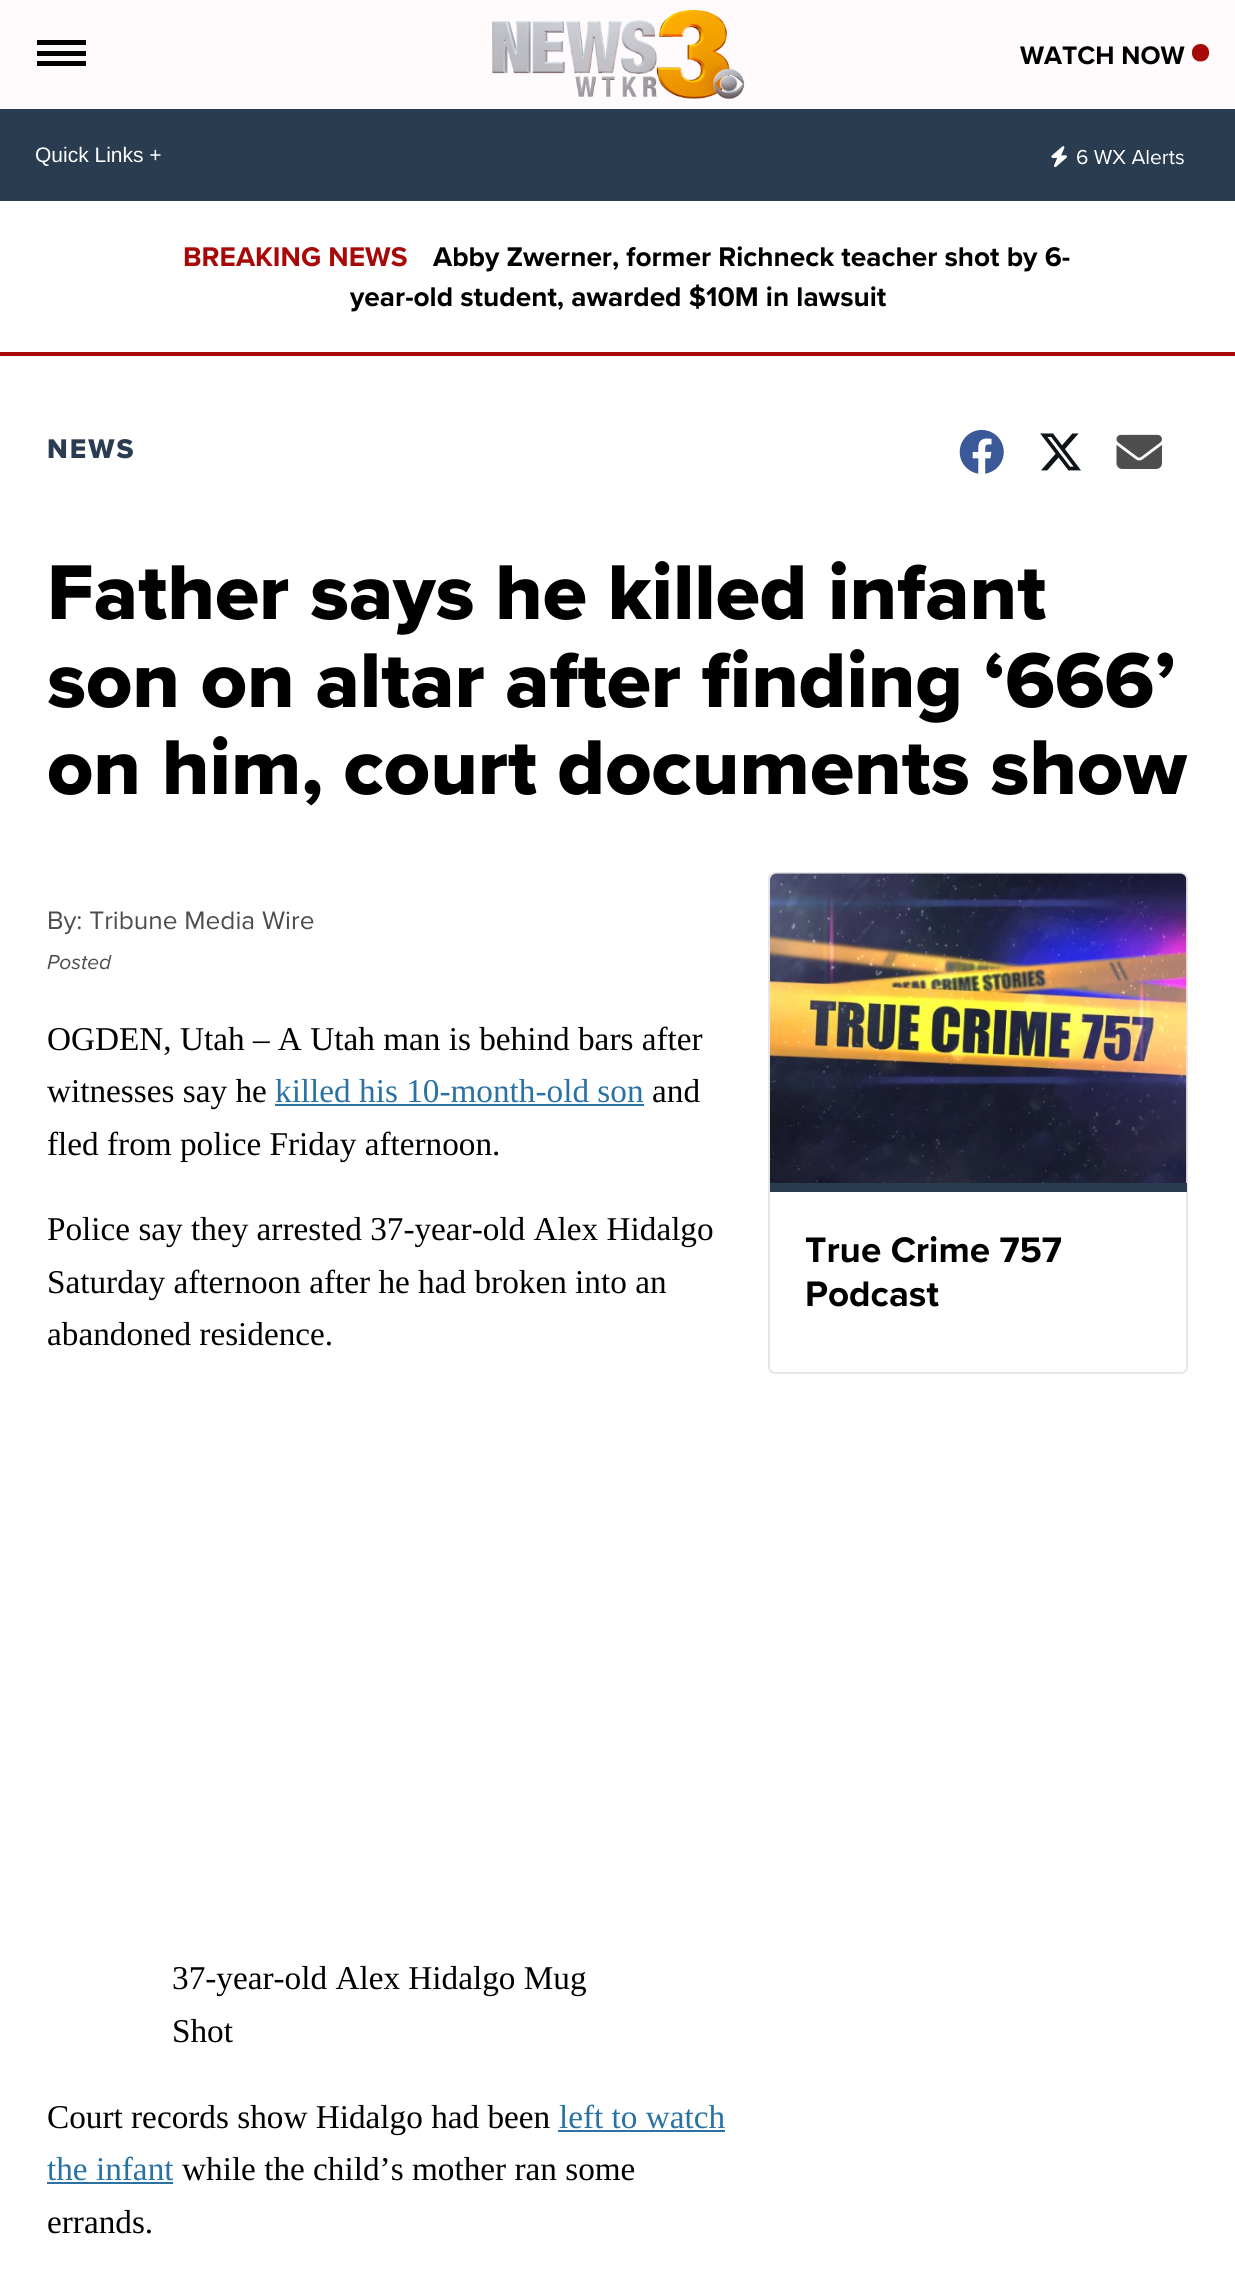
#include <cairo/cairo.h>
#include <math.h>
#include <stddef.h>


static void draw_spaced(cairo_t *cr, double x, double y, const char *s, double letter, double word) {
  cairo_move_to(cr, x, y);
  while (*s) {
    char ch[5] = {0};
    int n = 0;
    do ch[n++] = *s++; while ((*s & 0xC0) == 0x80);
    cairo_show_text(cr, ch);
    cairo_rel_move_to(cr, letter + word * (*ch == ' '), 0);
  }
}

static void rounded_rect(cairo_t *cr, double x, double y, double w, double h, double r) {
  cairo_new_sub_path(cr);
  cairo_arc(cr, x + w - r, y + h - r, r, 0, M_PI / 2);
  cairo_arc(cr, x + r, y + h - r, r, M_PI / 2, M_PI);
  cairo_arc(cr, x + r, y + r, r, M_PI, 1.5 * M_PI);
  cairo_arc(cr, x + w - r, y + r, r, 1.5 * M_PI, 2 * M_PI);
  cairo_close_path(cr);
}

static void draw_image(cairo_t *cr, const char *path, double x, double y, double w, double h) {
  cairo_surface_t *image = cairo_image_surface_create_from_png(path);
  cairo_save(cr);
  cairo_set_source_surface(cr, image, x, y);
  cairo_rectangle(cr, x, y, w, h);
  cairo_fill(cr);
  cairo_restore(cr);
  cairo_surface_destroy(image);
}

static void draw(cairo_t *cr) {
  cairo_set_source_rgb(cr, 1, 1, 1);
  cairo_paint(cr);
  cairo_set_source_rgb(cr, 1, 251 / 255.0, 253 / 255.0);
  cairo_rectangle(cr, 0, 0, 1235, 109);
  cairo_fill(cr);
  cairo_set_source_rgb(cr, 0, 0, 0);
  cairo_rectangle(cr, 37, 40, 49, 5);
  cairo_fill(cr);
  cairo_rectangle(cr, 37, 51, 49, 5);
  cairo_fill(cr);
  cairo_rectangle(cr, 37, 61, 49, 5);
  cairo_fill(cr);
  draw_image(cr, "images/1.png", 492, 9, 253, 90);
  cairo_set_source_rgb(cr, 167 / 255.0, 8 / 255.0, 8 / 255.0);
  cairo_new_path(cr);
  cairo_move_to(cr, 1200.5, 61.5);
  cairo_curve_to(cr, 1212, 61.5, 1212, 44, 1200.5, 44);
  cairo_curve_to(cr, 1189, 44, 1189, 61.5, 1200.5, 61.5);
  cairo_close_path(cr);
  cairo_fill(cr);
  cairo_set_source_rgb(cr, 42 / 255.0, 60 / 255.0, 79 / 255.0);
  cairo_rectangle(cr, 0, 109, 1235, 92);
  cairo_fill(cr);
  draw_image(cr, "images/2.png", 1051, 146, 16, 22);
  cairo_set_source_rgb(cr, 167 / 255.0, 8 / 255.0, 8 / 255.0);
  cairo_rectangle(cr, 0, 352, 1235, 4);
  cairo_fill(cr);
  draw_image(cr, "images/3.png", 959, 429, 45, 45);
  draw_image(cr, "images/4.png", 1040, 433, 41, 38);
  draw_image(cr, "images/5.png", 1116, 434, 46, 35);
  cairo_set_source_rgb(cr, 41 / 255.0, 114 / 255.0, 163 / 255.0);
  cairo_rectangle(cr, 275, 1104, 369, 2);
  cairo_fill(cr);
  cairo_rectangle(cr, 558, 2130, 167, 2);
  cairo_fill(cr);
  cairo_rectangle(cr, 47, 2182, 126, 2);
  cairo_fill(cr);
  rounded_rect(cr, 769, 873, 418, 500, 6);
  cairo_set_source_rgb(cr, 231 / 255.0, 231 / 255.0, 231 / 255.0);
  cairo_stroke(cr);
  draw_image(cr, "images/6.png", 770, 873, 417, 310);
  cairo_set_source_rgb(cr, 42 / 255.0, 60 / 255.0, 79 / 255.0);
  cairo_rectangle(cr, 770, 1183, 417, 9);
  cairo_fill(cr);
  cairo_select_font_face(cr, "Proxima Nova", CAIRO_FONT_SLANT_NORMAL, CAIRO_FONT_WEIGHT_BOLD);
  cairo_set_font_size(cr, 26.25);
  cairo_set_source_rgb(cr, 0, 0, 0);
  cairo_move_to(cr, 1020, 64);
  cairo_show_text(cr, "WATCH NOW");
  cairo_select_font_face(cr, "Liberation Sans", CAIRO_FONT_SLANT_NORMAL, CAIRO_FONT_WEIGHT_NORMAL);
  cairo_set_font_size(cr, 21);
  cairo_set_source_rgb(cr, 1, 1, 1);
  cairo_move_to(cr, 35, 162);
  cairo_show_text(cr, "Quick Links +");
  cairo_select_font_face(cr, "Proxima Nova", CAIRO_FONT_SLANT_NORMAL, CAIRO_FONT_WEIGHT_NORMAL);
  cairo_move_to(cr, 1076, 164);
  cairo_show_text(cr, "6 WX Alerts");
  cairo_select_font_face(cr, "Proxima Nova", CAIRO_FONT_SLANT_NORMAL, CAIRO_FONT_WEIGHT_BOLD);
  cairo_set_font_size(cr, 28);
  cairo_set_source_rgb(cr, 167 / 255.0, 8 / 255.0, 8 / 255.0);
  cairo_move_to(cr, 183, 266);
  cairo_show_text(cr, "BREAKING NEWS");
  cairo_set_source_rgb(cr, 0, 0, 0);
  cairo_move_to(cr, 433, 266);
  cairo_show_text(cr, "Abby Zwerner, former Richneck teacher shot by 6-");
  cairo_move_to(cr, 350, 306);
  cairo_show_text(cr, "year-old student, awarded $10M in lawsuit");
  cairo_select_font_face(cr, "Proxima Nova ExtraBold", CAIRO_FONT_SLANT_NORMAL, CAIRO_FONT_WEIGHT_NORMAL);
  cairo_set_source_rgb(cr, 42 / 255.0, 60 / 255.0, 79 / 255.0);
  draw_spaced(cr, 47, 458, "NEWS", 2, 0);
  cairo_set_font_size(cr, 80.5);
  cairo_set_source_rgb(cr, 0, 0, 0);
  cairo_move_to(cr, 47, 619);
  cairo_show_text(cr, "Father says he killed infant");
  cairo_move_to(cr, 47, 707);
  cairo_show_text(cr, "son on altar after finding ‘666’");
  cairo_move_to(cr, 47, 794);
  cairo_show_text(cr, "on him, court documents show");
  cairo_select_font_face(cr, "Proxima Nova", CAIRO_FONT_SLANT_NORMAL, CAIRO_FONT_WEIGHT_NORMAL);
  cairo_set_font_size(cr, 26.25);
  cairo_set_source_rgb(cr, 77 / 255.0, 77 / 255.0, 77 / 255.0);
  cairo_move_to(cr, 47, 929);
  cairo_show_text(cr, "By: Tribune Media Wire");
  cairo_select_font_face(cr, "Proxima Nova", CAIRO_FONT_SLANT_ITALIC, CAIRO_FONT_WEIGHT_NORMAL);
  cairo_set_font_size(cr, 21);
  cairo_move_to(cr, 47, 969);
  cairo_show_text(cr, "Posted");
  cairo_select_font_face(cr, "Liberation Serif", CAIRO_FONT_SLANT_NORMAL, CAIRO_FONT_WEIGHT_NORMAL);
  cairo_set_font_size(cr, 33.25);
  cairo_set_source_rgb(cr, 0, 0, 0);
  cairo_move_to(cr, 47, 1050);
  cairo_show_text(cr, "OGDEN, Utah – A Utah man is behind bars after");
  cairo_move_to(cr, 47, 1102);
  cairo_show_text(cr, "witnesses say he");
  cairo_set_source_rgb(cr, 41 / 255.0, 114 / 255.0, 163 / 255.0);
  cairo_move_to(cr, 275, 1102);
  cairo_show_text(cr, "killed his 10-month-old son");
  cairo_set_source_rgb(cr, 0, 0, 0);
  cairo_move_to(cr, 652, 1102);
  cairo_show_text(cr, "and");
  cairo_move_to(cr, 47, 1155);
  cairo_show_text(cr, "fled from police Friday afternoon.");
  cairo_move_to(cr, 47, 1240);
  cairo_show_text(cr, "Police say they arrested 37-year-old Alex Hidalgo");
  cairo_move_to(cr, 47, 1293);
  cairo_show_text(cr, "Saturday afternoon after he had broken into an");
  cairo_move_to(cr, 47, 1345);
  cairo_show_text(cr, "abandoned residence.");
  cairo_move_to(cr, 172, 1989);
  cairo_show_text(cr, "37-year-old Alex Hidalgo Mug");
  cairo_move_to(cr, 172, 2042);
  cairo_show_text(cr, "Shot");
  cairo_move_to(cr, 47, 2128);
  cairo_show_text(cr, "Court records show Hidalgo had been");
  cairo_set_source_rgb(cr, 41 / 255.0, 114 / 255.0, 163 / 255.0);
  cairo_move_to(cr, 559, 2128);
  cairo_show_text(cr, "left to watch");
  cairo_move_to(cr, 47, 2180);
  cairo_show_text(cr, "the infant");
  cairo_set_source_rgb(cr, 0, 0, 0);
  cairo_move_to(cr, 182, 2180);
  cairo_show_text(cr, "while the child’s mother ran some");
  cairo_move_to(cr, 47, 2233);
  cairo_show_text(cr, "errands.");
  cairo_select_font_face(cr, "Proxima Nova", CAIRO_FONT_SLANT_NORMAL, CAIRO_FONT_WEIGHT_BOLD);
  cairo_set_font_size(cr, 36.75);
  cairo_move_to(cr, 805, 1262);
  cairo_show_text(cr, "True Crime 757");
  cairo_move_to(cr, 805, 1306);
  cairo_show_text(cr, "Podcast");
}

int main(void) {
  cairo_surface_t *surface = cairo_image_surface_create(CAIRO_FORMAT_RGB24, 1235, 2276);
  cairo_t *cr = cairo_create(surface);
  cairo_font_options_t *options = cairo_font_options_create();
  cairo_font_options_set_hint_metrics(options, CAIRO_HINT_METRICS_OFF);
  cairo_font_options_set_hint_style(options, CAIRO_HINT_STYLE_NONE);
  cairo_set_font_options(cr, options);
  cairo_set_miter_limit(cr, 4);
  draw(cr);
  cairo_surface_write_to_png(surface, "out.png");
  cairo_font_options_destroy(options);
  cairo_destroy(cr);
  cairo_surface_destroy(surface);
  return 0;
}
